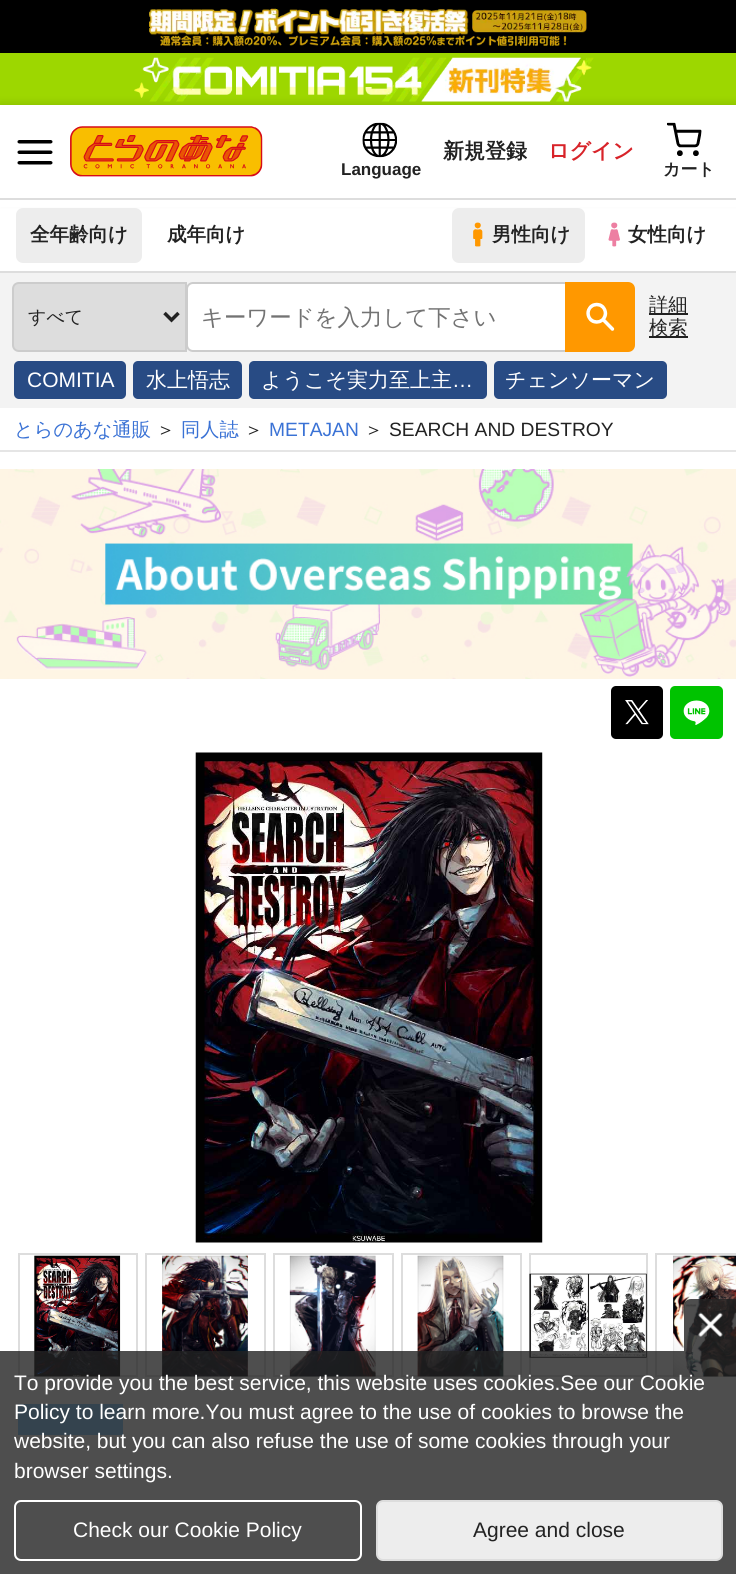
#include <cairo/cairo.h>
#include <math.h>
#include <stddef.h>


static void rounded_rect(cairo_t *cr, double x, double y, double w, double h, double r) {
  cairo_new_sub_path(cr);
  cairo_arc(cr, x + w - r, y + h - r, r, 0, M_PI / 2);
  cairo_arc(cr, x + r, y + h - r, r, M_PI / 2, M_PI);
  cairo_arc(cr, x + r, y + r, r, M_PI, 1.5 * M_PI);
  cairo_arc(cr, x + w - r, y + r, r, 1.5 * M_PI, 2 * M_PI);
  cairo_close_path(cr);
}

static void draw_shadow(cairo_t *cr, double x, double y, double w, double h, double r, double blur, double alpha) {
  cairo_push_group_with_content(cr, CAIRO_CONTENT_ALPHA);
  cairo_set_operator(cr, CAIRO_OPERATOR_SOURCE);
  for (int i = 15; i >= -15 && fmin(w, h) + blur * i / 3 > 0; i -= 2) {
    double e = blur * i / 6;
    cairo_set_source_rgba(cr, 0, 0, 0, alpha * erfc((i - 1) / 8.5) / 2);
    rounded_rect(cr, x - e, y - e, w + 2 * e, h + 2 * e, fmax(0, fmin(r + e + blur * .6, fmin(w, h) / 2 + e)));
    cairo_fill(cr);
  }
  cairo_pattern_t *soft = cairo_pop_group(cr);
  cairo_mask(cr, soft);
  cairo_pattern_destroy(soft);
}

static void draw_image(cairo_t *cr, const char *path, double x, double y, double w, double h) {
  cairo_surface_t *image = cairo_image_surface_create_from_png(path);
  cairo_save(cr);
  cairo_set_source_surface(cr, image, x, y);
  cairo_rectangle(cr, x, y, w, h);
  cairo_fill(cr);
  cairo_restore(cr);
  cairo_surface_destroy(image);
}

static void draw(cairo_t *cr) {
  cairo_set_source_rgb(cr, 1, 1, 1);
  cairo_paint(cr);
  cairo_set_source_rgb(cr, 0, 0, 0);
  cairo_rectangle(cr, 0, 0, 736, 53);
  cairo_fill(cr);
  draw_image(cr, "images/1.png", 149, 8, 438, 38);
  cairo_set_source_rgb(cr, 157 / 255.0, 215 / 255.0, 0);
  cairo_rectangle(cr, 0, 53, 736, 52);
  cairo_fill(cr);
  cairo_set_source_rgb(cr, 0, 0, 0);
  draw_shadow(cr, 0, 105, 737, 95, 0, 5, 0.15);
  draw_image(cr, "images/2.png", 134, 57, 460, 45);
  cairo_set_source_rgb(cr, 1, 1, 1);
  cairo_rectangle(cr, 0, 105, 736, 93);
  cairo_fill(cr);
  cairo_set_source_rgb(cr, 221 / 255.0, 221 / 255.0, 221 / 255.0);
  cairo_rectangle(cr, 0, 198, 736, 2);
  cairo_fill(cr);
  draw_image(cr, "images/3.png", 17, 140, 36, 25);
  draw_image(cr, "images/4.png", 70, 126, 193, 51);
  draw_image(cr, "images/5.png", 362, 122, 35, 36);
  draw_image(cr, "images/6.png", 667, 122, 35, 34);
  cairo_set_source_rgb(cr, 1, 1, 1);
  cairo_rectangle(cr, 0, 200, 736, 7);
  cairo_fill(cr);
  cairo_set_source_rgb(cr, 221 / 255.0, 221 / 255.0, 221 / 255.0);
  cairo_rectangle(cr, 0, 271, 736, 2);
  cairo_fill(cr);
  cairo_set_source_rgb(cr, 237 / 255.0, 237 / 255.0, 237 / 255.0);
  rounded_rect(cr, 16, 208, 126, 55, 7);
  cairo_fill(cr);
  rounded_rect(cr, 452, 208, 133, 55, 7);
  cairo_fill(cr);
  draw_image(cr, "images/7.png", 473, 222, 10, 25);
  draw_image(cr, "images/8.png", 608, 222, 12, 25);
  cairo_set_source_rgb(cr, 243 / 255.0, 243 / 255.0, 243 / 255.0);
  cairo_rectangle(cr, 0, 273, 736, 135);
  cairo_fill(cr);
  cairo_set_source_rgb(cr, 221 / 255.0, 221 / 255.0, 221 / 255.0);
  cairo_new_path(cr);
  cairo_move_to(cr, 19, 283);
  cairo_line_to(cr, 186, 283);
  cairo_line_to(cr, 186, 351);
  cairo_line_to(cr, 19, 351);
  cairo_curve_to(cr, 15.5, 351, 13, 348.5, 13, 345);
  cairo_line_to(cr, 13, 289);
  cairo_curve_to(cr, 13, 285.5, 15.5, 283, 19, 283);
  cairo_close_path(cr);
  cairo_fill_preserve(cr);
  cairo_set_source_rgb(cr, 204 / 255.0, 204 / 255.0, 204 / 255.0);
  cairo_stroke(cr);
  cairo_new_path(cr);
  cairo_move_to(cr, 164.5, 313);
  cairo_line_to(cr, 171.5, 320);
  cairo_line_to(cr, 178.5, 313);
  cairo_set_source_rgb(cr, 34 / 255.0, 34 / 255.0, 34 / 255.0);
  cairo_set_line_width(cr, 3.5);
  cairo_stroke(cr);
  cairo_set_source_rgb(cr, 1, 1, 1);
  rounded_rect(cr, 187, 283, 383, 68, 6);
  cairo_fill_preserve(cr);
  cairo_set_source_rgb(cr, 204 / 255.0, 204 / 255.0, 204 / 255.0);
  cairo_set_line_width(cr, 2);
  cairo_stroke(cr);
  cairo_set_source_rgb(cr, 1, 152 / 255.0, 0);
  cairo_new_path(cr);
  cairo_move_to(cr, 565, 282);
  cairo_line_to(cr, 628, 282);
  cairo_curve_to(cr, 632, 282, 635, 285, 635, 289);
  cairo_line_to(cr, 635, 345);
  cairo_curve_to(cr, 635, 349, 632, 352, 628, 352);
  cairo_line_to(cr, 565, 352);
  cairo_close_path(cr);
  cairo_fill(cr);
  draw_image(cr, "images/9.png", 586, 302, 29, 29);
  cairo_set_source_rgb(cr, 34 / 255.0, 34 / 255.0, 34 / 255.0);
  cairo_rectangle(cr, 649, 313, 39, 2);
  cairo_fill(cr);
  cairo_rectangle(cr, 649, 336, 39, 2);
  cairo_fill(cr);
  cairo_set_source_rgb(cr, 40 / 255.0, 75 / 255.0, 132 / 255.0);
  rounded_rect(cr, 14, 361, 112, 38, 5);
  cairo_fill(cr);
  rounded_rect(cr, 133, 361, 109, 38, 5);
  cairo_fill(cr);
  rounded_rect(cr, 249, 361, 238, 38, 5);
  cairo_fill(cr);
  rounded_rect(cr, 494, 361, 173, 38, 5);
  cairo_fill(cr);
  cairo_rectangle(cr, 19, 1254, 118, 122);
  cairo_set_source_rgb(cr, 221 / 255.0, 221 / 255.0, 221 / 255.0);
  cairo_stroke(cr);
  draw_image(cr, "images/15.png", 34, 1255, 87, 122);
  cairo_rectangle(cr, 146, 1254, 119, 122);
  cairo_stroke(cr);
  draw_image(cr, "images/16.png", 162, 1255, 86, 122);
  cairo_rectangle(cr, 274, 1254, 119, 122);
  cairo_stroke(cr);
  draw_image(cr, "images/17.png", 289, 1255, 87, 122);
  cairo_rectangle(cr, 402, 1254, 119, 122);
  cairo_stroke(cr);
  draw_image(cr, "images/18.png", 417, 1255, 87, 122);
  cairo_rectangle(cr, 530, 1254, 117, 122);
  cairo_stroke(cr);
  draw_image(cr, "images/19.png", 529, 1273, 118, 85);
  cairo_rectangle(cr, 656, 1254, 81, 122);
  cairo_stroke(cr);
  draw_image(cr, "images/20.png", 673, 1255, 63, 122);
  cairo_set_source_rgb(cr, 123 / 255.0, 199 / 255.0, 1);
  cairo_rectangle(cr, 18, 1404, 105, 31);
  cairo_fill(cr);
  cairo_set_source_rgba(cr, 34 / 255.0, 34 / 255.0, 34 / 255.0, 0.8);
  cairo_rectangle(cr, 0, 1351, 736, 223);
  cairo_fill(cr);
  cairo_new_path(cr);
  cairo_move_to(cr, 691, 1299);
  cairo_line_to(cr, 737, 1299);
  cairo_line_to(cr, 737, 1351);
  cairo_line_to(cr, 684, 1351);
  cairo_line_to(cr, 684, 1306);
  cairo_curve_to(cr, 684, 1302, 687, 1299, 691, 1299);
  cairo_close_path(cr);
  cairo_fill(cr);
  draw_image(cr, "images/10.png", 698, 1312, 25, 25);
  rounded_rect(cr, 15, 1501, 346, 59, 6);
  cairo_set_source_rgb(cr, 1, 1, 1);
  cairo_stroke(cr);
  cairo_set_source_rgb(cr, 237 / 255.0, 237 / 255.0, 237 / 255.0);
  rounded_rect(cr, 377, 1501, 345, 59, 6);
  cairo_fill_preserve(cr);
  cairo_set_source_rgb(cr, 221 / 255.0, 221 / 255.0, 221 / 255.0);
  cairo_stroke(cr);
  cairo_set_source_rgb(cr, 229 / 255.0, 229 / 255.0, 229 / 255.0);
  cairo_rectangle(cr, 0, 450, 736, 2);
  cairo_fill(cr);
  draw_image(cr, "images/11.png", 0, 469, 736, 210);
  cairo_set_source_rgb(cr, 0, 0, 0);
  rounded_rect(cr, 611, 686, 52, 53, 5);
  cairo_fill(cr);
  draw_image(cr, "images/12.png", 625, 700, 24, 25);
  cairo_set_source_rgb(cr, 0, 195 / 255.0, 0);
  rounded_rect(cr, 670, 686, 53, 53, 5);
  cairo_fill(cr);
  draw_image(cr, "images/13.png", 683, 700, 27, 25);
  draw_image(cr, "images/14.png", 195, 752, 348, 491);
  cairo_select_font_face(cr, "WenQuanYi Zen Hei", CAIRO_FONT_SLANT_NORMAL, CAIRO_FONT_WEIGHT_BOLD);
  cairo_set_font_size(cr, 21);
  cairo_set_source_rgb(cr, 34 / 255.0, 34 / 255.0, 34 / 255.0);
  cairo_move_to(cr, 443, 158);
  cairo_show_text(cr, "新規登録");
  cairo_set_source_rgb(cr, 216 / 255.0, 35 / 255.0, 41 / 255.0);
  cairo_move_to(cr, 548, 158);
  cairo_show_text(cr, "ログイン");
  cairo_select_font_face(cr, "Liberation Sans", CAIRO_FONT_SLANT_NORMAL, CAIRO_FONT_WEIGHT_BOLD);
  cairo_set_font_size(cr, 17);
  cairo_set_source_rgb(cr, 34 / 255.0, 34 / 255.0, 34 / 255.0);
  cairo_move_to(cr, 341, 175);
  cairo_show_text(cr, "Language");
  cairo_select_font_face(cr, "WenQuanYi Zen Hei", CAIRO_FONT_SLANT_NORMAL, CAIRO_FONT_WEIGHT_BOLD);
  cairo_move_to(cr, 663, 175);
  cairo_show_text(cr, "カート");
  cairo_set_font_size(cr, 19.5);
  cairo_move_to(cr, 30, 241);
  cairo_show_text(cr, "全年齢向け");
  cairo_move_to(cr, 167, 241);
  cairo_show_text(cr, "成年向け");
  cairo_move_to(cr, 492, 241);
  cairo_show_text(cr, "男性向け");
  cairo_move_to(cr, 628, 241);
  cairo_show_text(cr, "女性向け");
  cairo_select_font_face(cr, "WenQuanYi Zen Hei Medium", CAIRO_FONT_SLANT_NORMAL, CAIRO_FONT_WEIGHT_NORMAL);
  cairo_set_font_size(cr, 18);
  cairo_move_to(cr, 28, 323);
  cairo_show_text(cr, "すべて");
  cairo_set_font_size(cr, 22.4);
  cairo_set_source_rgb(cr, 115 / 255.0, 115 / 255.0, 115 / 255.0);
  cairo_move_to(cr, 201, 325);
  cairo_show_text(cr, "キーワードを入力して下さい");
  cairo_set_font_size(cr, 19.25);
  cairo_set_source_rgb(cr, 34 / 255.0, 34 / 255.0, 34 / 255.0);
  cairo_move_to(cr, 649, 311);
  cairo_show_text(cr, "詳細");
  cairo_move_to(cr, 649, 334);
  cairo_show_text(cr, "検索");
  cairo_select_font_face(cr, "Liberation Sans", CAIRO_FONT_SLANT_NORMAL, CAIRO_FONT_WEIGHT_NORMAL);
  cairo_set_font_size(cr, 21);
  cairo_set_source_rgb(cr, 1, 1, 1);
  cairo_move_to(cr, 27, 387);
  cairo_show_text(cr, "COMITIA");
  cairo_select_font_face(cr, "WenQuanYi Zen Hei Medium", CAIRO_FONT_SLANT_NORMAL, CAIRO_FONT_WEIGHT_NORMAL);
  cairo_move_to(cr, 146, 387);
  cairo_show_text(cr, "水上悟志");
  cairo_move_to(cr, 261, 387);
  cairo_show_text(cr, "ようこそ実力至上主");
  cairo_select_font_face(cr, "Liberation Sans", CAIRO_FONT_SLANT_NORMAL, CAIRO_FONT_WEIGHT_NORMAL);
  cairo_move_to(cr, 452, 387);
  cairo_show_text(cr, "…");
  cairo_select_font_face(cr, "WenQuanYi Zen Hei Medium", CAIRO_FONT_SLANT_NORMAL, CAIRO_FONT_WEIGHT_NORMAL);
  cairo_move_to(cr, 505, 387);
  cairo_show_text(cr, "チェンソーマン");
  cairo_select_font_face(cr, "Liberation Sans", CAIRO_FONT_SLANT_NORMAL, CAIRO_FONT_WEIGHT_NORMAL);
  cairo_move_to(cr, 14, 1390);
  cairo_show_text(cr, "To provide you the best service, this website uses cookies.See our Cookie");
  cairo_move_to(cr, 14, 1419);
  cairo_show_text(cr, "Policy to learn more.You must agree to the use of cookies to browse the");
  cairo_move_to(cr, 14, 1448);
  cairo_show_text(cr, "website, but you can also refuse the use of some cookies through your");
  cairo_move_to(cr, 14, 1478);
  cairo_show_text(cr, "browser settings.");
  cairo_move_to(cr, 73, 1537);
  cairo_show_text(cr, "Check our Cookie Policy");
  cairo_set_source_rgb(cr, 34 / 255.0, 34 / 255.0, 34 / 255.0);
  cairo_move_to(cr, 473, 1537);
  cairo_show_text(cr, "Agree and close");
  cairo_select_font_face(cr, "WenQuanYi Zen Hei Medium", CAIRO_FONT_SLANT_NORMAL, CAIRO_FONT_WEIGHT_NORMAL);
  cairo_set_font_size(cr, 19.25);
  cairo_set_source_rgb(cr, 58 / 255.0, 114 / 255.0, 213 / 255.0);
  cairo_move_to(cr, 14, 436);
  cairo_show_text(cr, "とらのあな通販");
  cairo_set_source_rgb(cr, 34 / 255.0, 34 / 255.0, 34 / 255.0);
  cairo_move_to(cr, 156, 436);
  cairo_show_text(cr, "＞");
  cairo_set_source_rgb(cr, 58 / 255.0, 114 / 255.0, 213 / 255.0);
  cairo_move_to(cr, 181, 436);
  cairo_show_text(cr, "同人誌");
  cairo_set_source_rgb(cr, 34 / 255.0, 34 / 255.0, 34 / 255.0);
  cairo_move_to(cr, 244, 436);
  cairo_show_text(cr, "＞");
  cairo_select_font_face(cr, "Liberation Sans", CAIRO_FONT_SLANT_NORMAL, CAIRO_FONT_WEIGHT_NORMAL);
  cairo_set_source_rgb(cr, 58 / 255.0, 114 / 255.0, 213 / 255.0);
  cairo_move_to(cr, 269, 436);
  cairo_show_text(cr, "METAJAN");
  cairo_select_font_face(cr, "WenQuanYi Zen Hei Medium", CAIRO_FONT_SLANT_NORMAL, CAIRO_FONT_WEIGHT_NORMAL);
  cairo_set_source_rgb(cr, 34 / 255.0, 34 / 255.0, 34 / 255.0);
  cairo_move_to(cr, 364, 436);
  cairo_show_text(cr, "＞");
  cairo_select_font_face(cr, "Liberation Sans", CAIRO_FONT_SLANT_NORMAL, CAIRO_FONT_WEIGHT_NORMAL);
  cairo_move_to(cr, 389, 436);
  cairo_show_text(cr, "SEARCH AND DESTROY");
}

int main(void) {
  cairo_surface_t *surface = cairo_image_surface_create(CAIRO_FORMAT_RGB24, 736, 1574);
  cairo_t *cr = cairo_create(surface);
  cairo_font_options_t *options = cairo_font_options_create();
  cairo_font_options_set_hint_metrics(options, CAIRO_HINT_METRICS_OFF);
  cairo_font_options_set_hint_style(options, CAIRO_HINT_STYLE_NONE);
  cairo_set_font_options(cr, options);
  cairo_set_miter_limit(cr, 4);
  draw(cr);
  cairo_surface_write_to_png(surface, "out.png");
  cairo_font_options_destroy(options);
  cairo_destroy(cr);
  cairo_surface_destroy(surface);
  return 0;
}
